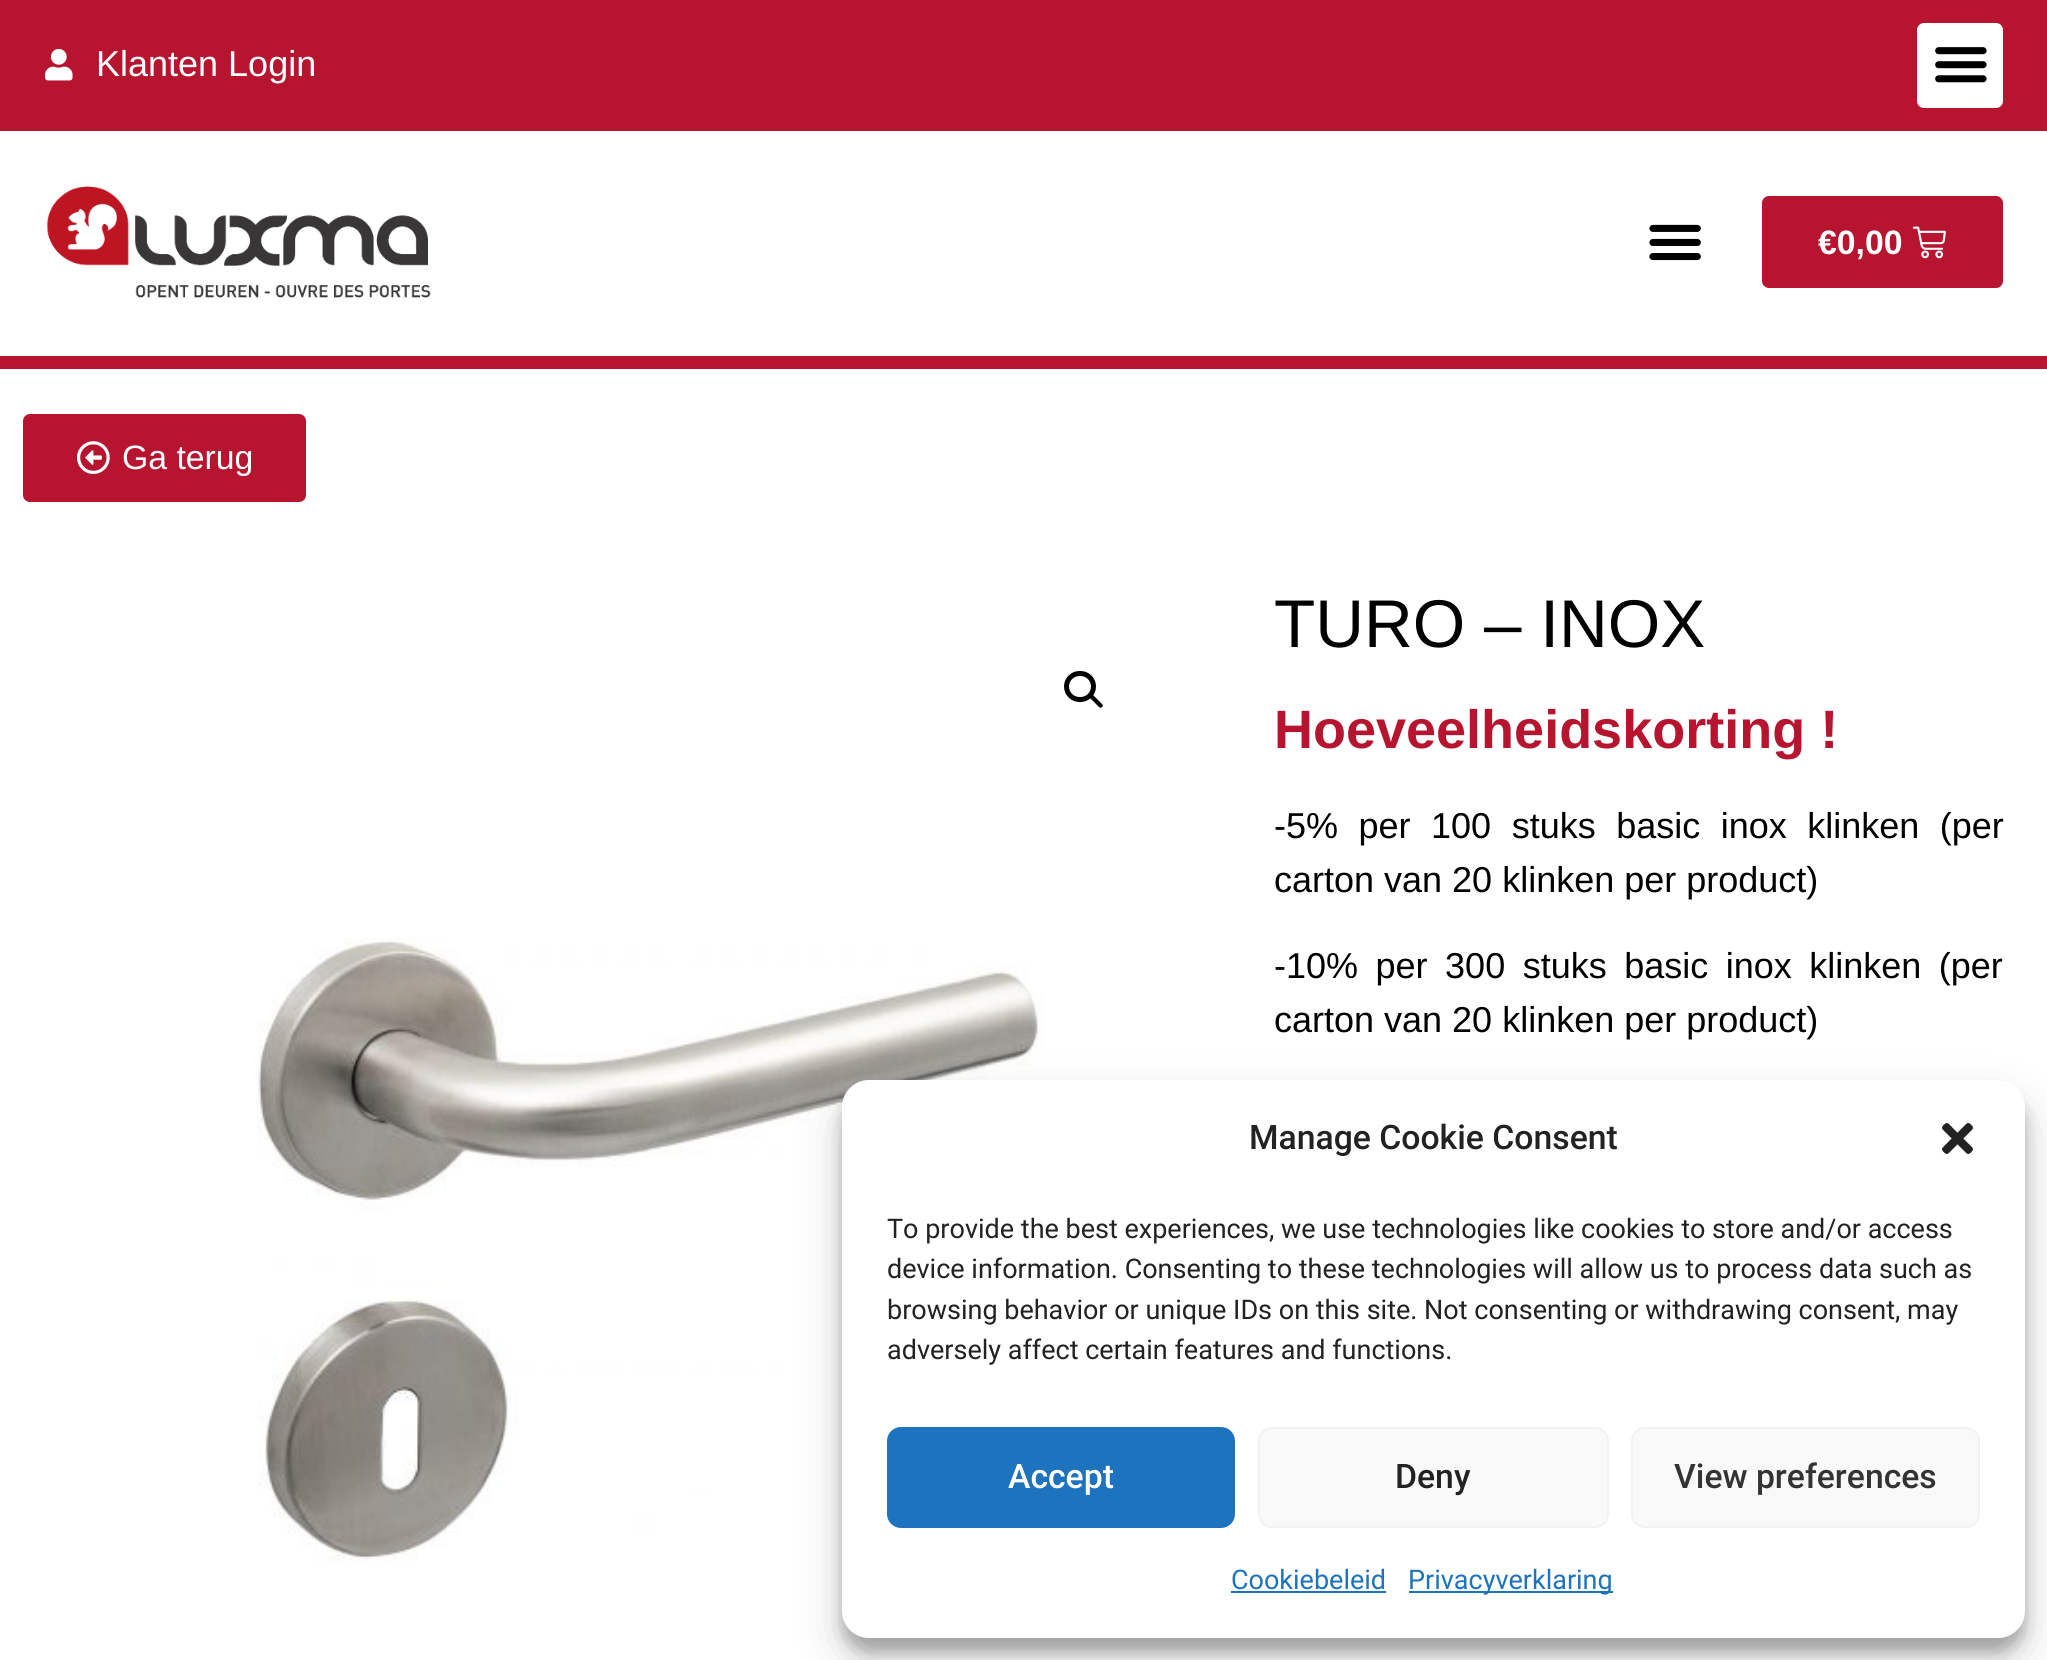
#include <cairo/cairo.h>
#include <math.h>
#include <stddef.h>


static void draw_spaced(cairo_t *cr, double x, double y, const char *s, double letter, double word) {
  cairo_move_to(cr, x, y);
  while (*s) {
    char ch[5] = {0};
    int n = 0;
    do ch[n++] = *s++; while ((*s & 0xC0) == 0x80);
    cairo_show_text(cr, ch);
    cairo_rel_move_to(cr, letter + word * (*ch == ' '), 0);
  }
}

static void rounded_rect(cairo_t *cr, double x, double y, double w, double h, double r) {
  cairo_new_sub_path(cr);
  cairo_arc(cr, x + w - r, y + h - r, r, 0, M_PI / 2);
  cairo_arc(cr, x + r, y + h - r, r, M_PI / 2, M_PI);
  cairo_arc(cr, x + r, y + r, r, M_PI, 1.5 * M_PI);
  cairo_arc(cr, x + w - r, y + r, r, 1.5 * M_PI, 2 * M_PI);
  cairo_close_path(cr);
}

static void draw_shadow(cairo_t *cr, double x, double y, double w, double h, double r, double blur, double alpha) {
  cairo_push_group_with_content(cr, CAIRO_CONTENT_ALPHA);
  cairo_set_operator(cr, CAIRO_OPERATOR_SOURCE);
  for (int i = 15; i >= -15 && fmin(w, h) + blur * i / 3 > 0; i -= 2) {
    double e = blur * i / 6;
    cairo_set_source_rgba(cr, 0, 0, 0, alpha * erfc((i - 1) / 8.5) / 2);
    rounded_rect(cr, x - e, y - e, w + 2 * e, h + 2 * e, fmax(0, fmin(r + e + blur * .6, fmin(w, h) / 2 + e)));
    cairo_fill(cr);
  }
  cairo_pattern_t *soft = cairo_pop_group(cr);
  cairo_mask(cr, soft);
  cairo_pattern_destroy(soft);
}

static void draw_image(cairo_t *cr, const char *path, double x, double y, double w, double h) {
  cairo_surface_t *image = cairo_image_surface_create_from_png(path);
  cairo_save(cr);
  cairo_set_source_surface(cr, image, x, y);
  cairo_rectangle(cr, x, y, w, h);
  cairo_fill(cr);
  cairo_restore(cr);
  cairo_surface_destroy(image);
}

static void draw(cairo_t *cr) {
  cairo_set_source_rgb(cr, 1, 1, 1);
  cairo_paint(cr);
  cairo_set_source_rgb(cr, 183 / 255.0, 21 / 255.0, 47 / 255.0);
  cairo_rectangle(cr, 0, 0, 2047, 131);
  cairo_fill(cr);
  draw_image(cr, "images/1.png", 45, 48, 28, 33);
  cairo_set_source_rgb(cr, 1, 1, 1);
  rounded_rect(cr, 1917, 23, 86, 85, 7);
  cairo_fill(cr);
  draw_image(cr, "images/2.png", 1935, 47, 52, 36);
  cairo_set_source_rgb(cr, 183 / 255.0, 21 / 255.0, 47 / 255.0);
  cairo_rectangle(cr, 0, 356, 2047, 13);
  cairo_fill(cr);
  draw_image(cr, "images/3.png", 47, 186, 384, 112);
  draw_image(cr, "images/4.png", 1649, 224, 52, 37);
  rounded_rect(cr, 1763, 197, 239, 90, 6);
  cairo_fill_preserve(cr);
  cairo_stroke(cr);
  draw_image(cr, "images/5.png", 1912, 226, 34, 33);
  rounded_rect(cr, 23, 414, 283, 88, 7);
  cairo_fill(cr);
  draw_image(cr, "images/6.png", 77, 441, 33, 33);
  rounded_rect(cr, 1066.5, 673.5, 27, 26, 13);
  cairo_set_source_rgb(cr, 0, 0, 0);
  cairo_set_line_width(cr, 5);
  cairo_stroke(cr);
  cairo_new_path(cr);
  cairo_move_to(cr, 1089.5, 694.5);
  cairo_curve_to(cr, 1090.5, 693.5, 1091.5, 693.5, 1092.5, 694.5);
  cairo_line_to(cr, 1102, 704);
  cairo_curve_to(cr, 1103, 705, 1103, 706.5, 1102, 707);
  cairo_curve_to(cr, 1101, 708, 1100, 708, 1099, 707);
  cairo_line_to(cr, 1089.5, 697.5);
  cairo_curve_to(cr, 1088.5, 697, 1088.5, 695.5, 1089.5, 694.5);
  cairo_close_path(cr);
  cairo_fill(cr);
  draw_image(cr, "images/7.png", 257, 937, 787, 625);
  cairo_set_source_rgb(cr, 0, 0, 0);
  draw_shadow(cr, 842, 1094, 1183, 558, 27, 7, 0.23);
  draw_shadow(cr, 842, 1103, 1183, 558, 27, 22.5, 0.19);
  cairo_set_source_rgb(cr, 1, 1, 1);
  rounded_rect(cr, 842, 1080, 1183, 558, 27);
  cairo_fill(cr);
  draw_image(cr, "images/8.png", 1942, 1123, 31, 31);
  cairo_set_source_rgb(cr, 30 / 255.0, 115 / 255.0, 190 / 255.0);
  rounded_rect(cr, 888, 1428, 346, 99, 13);
  cairo_fill_preserve(cr);
  cairo_set_line_width(cr, 2);
  cairo_stroke(cr);
  cairo_set_source_rgb(cr, 249 / 255.0, 249 / 255.0, 249 / 255.0);
  rounded_rect(cr, 1259, 1428, 349, 99, 13);
  cairo_fill_preserve(cr);
  cairo_set_source_rgb(cr, 242 / 255.0, 242 / 255.0, 242 / 255.0);
  cairo_stroke(cr);
  cairo_set_source_rgb(cr, 249 / 255.0, 249 / 255.0, 249 / 255.0);
  rounded_rect(cr, 1632, 1428, 347, 99, 13);
  cairo_fill_preserve(cr);
  cairo_set_source_rgb(cr, 242 / 255.0, 242 / 255.0, 242 / 255.0);
  cairo_stroke(cr);
  cairo_set_source_rgb(cr, 30 / 255.0, 115 / 255.0, 190 / 255.0);
  cairo_rectangle(cr, 1231, 1591, 155, 2);
  cairo_fill(cr);
  cairo_rectangle(cr, 1409, 1591, 204, 2);
  cairo_fill(cr);
  cairo_select_font_face(cr, "Liberation Sans", CAIRO_FONT_SLANT_NORMAL, CAIRO_FONT_WEIGHT_NORMAL);
  cairo_set_font_size(cr, 36);
  cairo_set_source_rgb(cr, 1, 1, 1);
  cairo_move_to(cr, 96, 76);
  cairo_show_text(cr, "Klanten Login");
  cairo_select_font_face(cr, "Liberation Sans", CAIRO_FONT_SLANT_NORMAL, CAIRO_FONT_WEIGHT_BOLD);
  cairo_set_font_size(cr, 33.75);
  cairo_move_to(cr, 1818, 254);
  cairo_show_text(cr, "€0,00");
  cairo_select_font_face(cr, "Liberation Sans", CAIRO_FONT_SLANT_NORMAL, CAIRO_FONT_WEIGHT_NORMAL);
  cairo_move_to(cr, 122, 469);
  cairo_show_text(cr, "Ga terug");
  cairo_set_font_size(cr, 67.5);
  cairo_set_source_rgb(cr, 0, 0, 0);
  cairo_move_to(cr, 1274, 647);
  cairo_show_text(cr, "TURO – INOX");
  cairo_select_font_face(cr, "Liberation Sans", CAIRO_FONT_SLANT_NORMAL, CAIRO_FONT_WEIGHT_BOLD);
  cairo_set_font_size(cr, 54);
  cairo_set_source_rgb(cr, 183 / 255.0, 21 / 255.0, 47 / 255.0);
  cairo_move_to(cr, 1274, 748);
  cairo_show_text(cr, "Hoeveelheidskorting !");
  cairo_select_font_face(cr, "Liberation Sans", CAIRO_FONT_SLANT_NORMAL, CAIRO_FONT_WEIGHT_NORMAL);
  cairo_set_font_size(cr, 36);
  cairo_set_source_rgb(cr, 0, 0, 0);
  draw_spaced(cr, 1274, 838, "-5% per 100 stuks basic inox klinken (per", 0, 10.5);
  cairo_move_to(cr, 1274, 892);
  cairo_show_text(cr, "carton van 20 klinken per product)");
  draw_spaced(cr, 1274, 978, "-10% per 300 stuks basic inox klinken (per", 0, 7.5);
  cairo_move_to(cr, 1274, 1032);
  cairo_show_text(cr, "carton van 20 klinken per product)");
  cairo_select_font_face(cr, "Roboto Medium", CAIRO_FONT_SLANT_NORMAL, CAIRO_FONT_WEIGHT_NORMAL);
  cairo_set_font_size(cr, 33.75);
  cairo_set_source_rgb(cr, 34 / 255.0, 34 / 255.0, 34 / 255.0);
  cairo_move_to(cr, 1249, 1149);
  cairo_show_text(cr, "Manage Cookie Consent");
  cairo_select_font_face(cr, "Roboto", CAIRO_FONT_SLANT_NORMAL, CAIRO_FONT_WEIGHT_NORMAL);
  cairo_set_font_size(cr, 27);
  cairo_move_to(cr, 887, 1238);
  cairo_show_text(cr, "To provide the best experiences, we use technologies like cookies to store and/or access");
  cairo_move_to(cr, 887, 1278);
  cairo_show_text(cr, "device information. Consenting to these technologies will allow us to process data such as");
  cairo_move_to(cr, 887, 1319);
  cairo_show_text(cr, "browsing behavior or unique IDs on this site. Not consenting or withdrawing consent, may");
  cairo_move_to(cr, 887, 1359);
  cairo_show_text(cr, "adversely affect certain features and functions.");
  cairo_select_font_face(cr, "Roboto Medium", CAIRO_FONT_SLANT_NORMAL, CAIRO_FONT_WEIGHT_NORMAL);
  cairo_set_font_size(cr, 33.75);
  cairo_set_source_rgb(cr, 1, 1, 1);
  cairo_move_to(cr, 1008, 1488);
  cairo_show_text(cr, "Accept");
  cairo_set_source_rgb(cr, 34 / 255.0, 34 / 255.0, 34 / 255.0);
  cairo_move_to(cr, 1395, 1488);
  cairo_show_text(cr, "Deny");
  cairo_set_source_rgb(cr, 51 / 255.0, 51 / 255.0, 51 / 255.0);
  cairo_move_to(cr, 1674, 1488);
  cairo_show_text(cr, "View preferences");
  cairo_select_font_face(cr, "Roboto", CAIRO_FONT_SLANT_NORMAL, CAIRO_FONT_WEIGHT_NORMAL);
  cairo_set_font_size(cr, 27);
  cairo_set_source_rgb(cr, 30 / 255.0, 115 / 255.0, 190 / 255.0);
  cairo_move_to(cr, 1231, 1589);
  cairo_show_text(cr, "Cookiebeleid");
  cairo_move_to(cr, 1408, 1589);
  cairo_show_text(cr, "Privacyverklaring");
}

int main(void) {
  cairo_surface_t *surface = cairo_image_surface_create(CAIRO_FORMAT_RGB24, 2047, 1660);
  cairo_t *cr = cairo_create(surface);
  cairo_font_options_t *options = cairo_font_options_create();
  cairo_font_options_set_hint_metrics(options, CAIRO_HINT_METRICS_OFF);
  cairo_font_options_set_hint_style(options, CAIRO_HINT_STYLE_NONE);
  cairo_set_font_options(cr, options);
  cairo_set_miter_limit(cr, 4);
  draw(cr);
  cairo_surface_write_to_png(surface, "out.png");
  cairo_font_options_destroy(options);
  cairo_destroy(cr);
  cairo_surface_destroy(surface);
  return 0;
}
